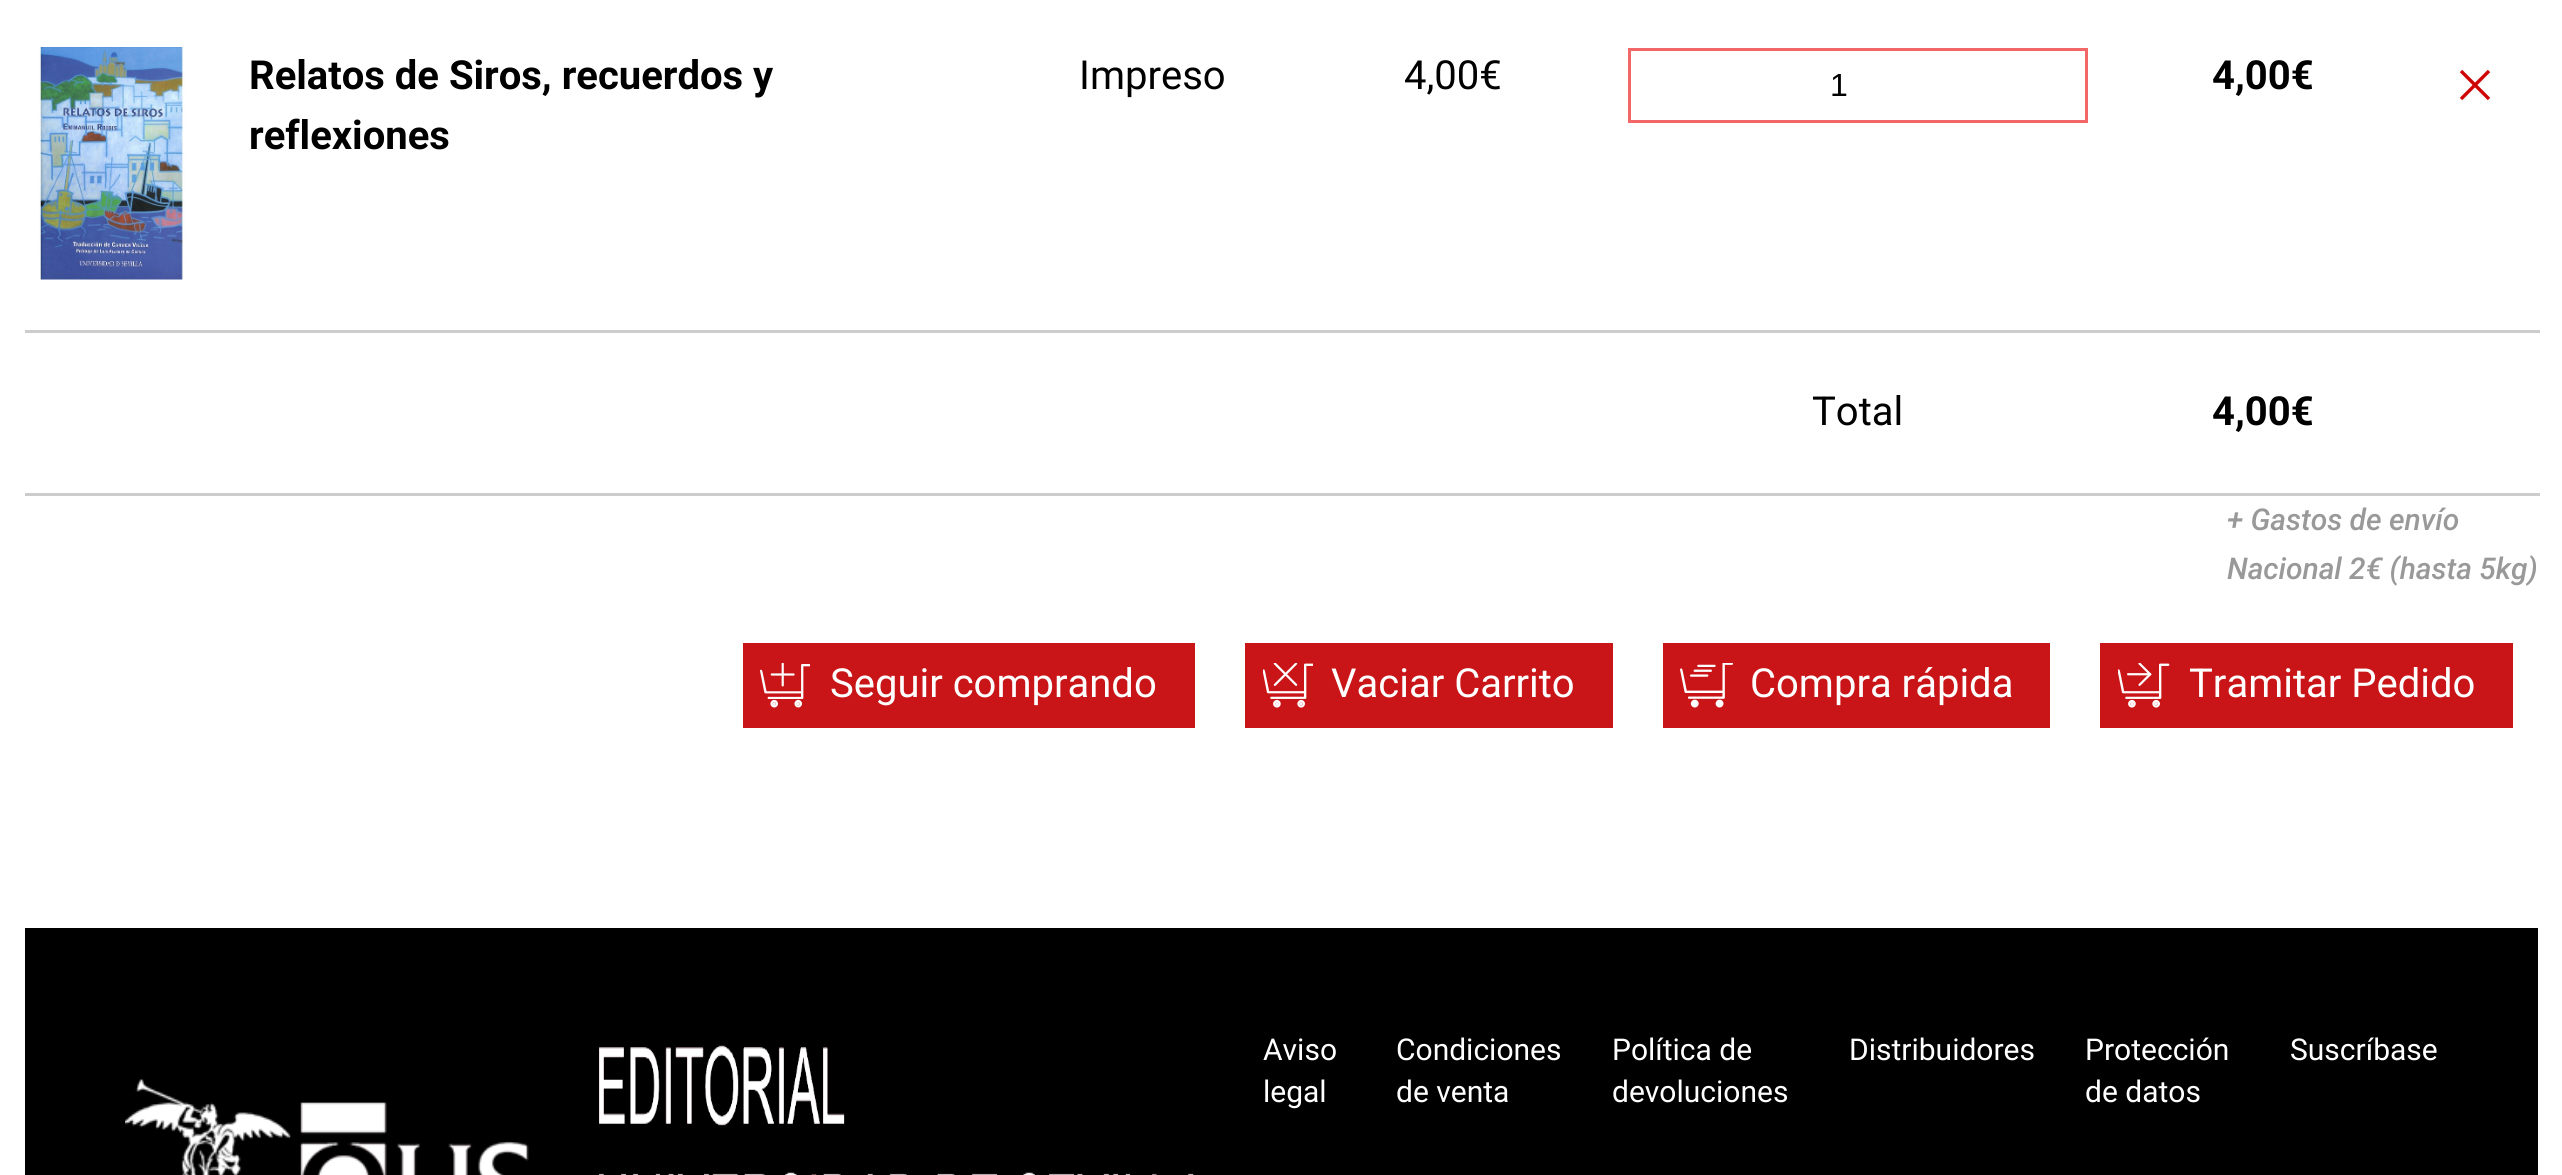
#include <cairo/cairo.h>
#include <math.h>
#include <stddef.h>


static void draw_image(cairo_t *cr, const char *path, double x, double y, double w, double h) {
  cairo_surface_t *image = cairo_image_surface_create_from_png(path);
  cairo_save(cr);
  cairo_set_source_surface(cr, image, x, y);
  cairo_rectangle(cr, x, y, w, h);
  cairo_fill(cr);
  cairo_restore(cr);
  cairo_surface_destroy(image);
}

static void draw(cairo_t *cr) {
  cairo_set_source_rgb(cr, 1, 1, 1);
  cairo_paint(cr);
  draw_image(cr, "images/1.png", 39, 47, 147, 233);
  cairo_set_source_rgb(cr, 204 / 255.0, 204 / 255.0, 204 / 255.0);
  cairo_rectangle(cr, 25, 330, 2515, 3);
  cairo_fill(cr);
  cairo_new_path(cr);
  cairo_move_to(cr, 2461, 71);
  cairo_line_to(cr, 2489, 99);
  cairo_move_to(cr, 2489, 71);
  cairo_line_to(cr, 2461, 99);
  cairo_set_source_rgb(cr, 206 / 255.0, 5 / 255.0, 5 / 255.0);
  cairo_set_line_width(cr, 3.4);
  cairo_stroke(cr);
  cairo_rectangle(cr, 1629.5, 49.5, 457, 72);
  cairo_set_source_rgb(cr, 242 / 255.0, 104 / 255.0, 105 / 255.0);
  cairo_set_line_width(cr, 3);
  cairo_stroke(cr);
  cairo_set_source_rgb(cr, 204 / 255.0, 204 / 255.0, 204 / 255.0);
  cairo_rectangle(cr, 25, 493, 2515, 3);
  cairo_fill(cr);
  cairo_set_source_rgb(cr, 201 / 255.0, 21 / 255.0, 23 / 255.0);
  cairo_rectangle(cr, 743, 643, 452, 85);
  cairo_fill(cr);
  draw_image(cr, "images/2.png", 760, 663, 50, 45);
  cairo_rectangle(cr, 1245, 643, 368, 85);
  cairo_fill(cr);
  draw_image(cr, "images/3.png", 1263, 663, 50, 45);
  cairo_rectangle(cr, 1663, 643, 387, 85);
  cairo_fill(cr);
  draw_image(cr, "images/4.png", 1680, 663, 53, 45);
  cairo_rectangle(cr, 2100, 643, 413, 85);
  cairo_fill(cr);
  draw_image(cr, "images/5.png", 2118, 663, 52, 45);
  cairo_set_source_rgb(cr, 0, 0, 0);
  cairo_rectangle(cr, 25, 928, 2513, 247);
  cairo_fill(cr);
  draw_image(cr, "images/6.png", 125, 1079, 404, 96);
  draw_image(cr, "images/7.png", 599, 1045, 595, 130);
  cairo_select_font_face(cr, "Roboto", CAIRO_FONT_SLANT_NORMAL, CAIRO_FONT_WEIGHT_BOLD);
  cairo_set_font_size(cr, 40);
  cairo_move_to(cr, 249, 89);
  cairo_show_text(cr, "Relatos de Siros, recuerdos y");
  cairo_move_to(cr, 249, 149);
  cairo_show_text(cr, "reflexiones");
  cairo_select_font_face(cr, "Roboto", CAIRO_FONT_SLANT_NORMAL, CAIRO_FONT_WEIGHT_NORMAL);
  cairo_move_to(cr, 1079, 89);
  cairo_show_text(cr, "Impreso");
  cairo_move_to(cr, 1404, 89);
  cairo_show_text(cr, "4,00€");
  cairo_select_font_face(cr, "Roboto", CAIRO_FONT_SLANT_NORMAL, CAIRO_FONT_WEIGHT_BOLD);
  cairo_move_to(cr, 2212, 89);
  cairo_show_text(cr, "4,00€");
  cairo_select_font_face(cr, "Liberation Sans", CAIRO_FONT_SLANT_NORMAL, CAIRO_FONT_WEIGHT_NORMAL);
  cairo_set_font_size(cr, 32);
  cairo_move_to(cr, 1830, 96);
  cairo_show_text(cr, "1");
  cairo_select_font_face(cr, "Roboto", CAIRO_FONT_SLANT_NORMAL, CAIRO_FONT_WEIGHT_NORMAL);
  cairo_set_font_size(cr, 40);
  cairo_move_to(cr, 1812, 425);
  cairo_show_text(cr, "Total");
  cairo_select_font_face(cr, "Roboto", CAIRO_FONT_SLANT_NORMAL, CAIRO_FONT_WEIGHT_BOLD);
  cairo_move_to(cr, 2212, 425);
  cairo_show_text(cr, "4,00€");
  cairo_select_font_face(cr, "Roboto Medium", CAIRO_FONT_SLANT_ITALIC, CAIRO_FONT_WEIGHT_NORMAL);
  cairo_set_font_size(cr, 30);
  cairo_set_source_rgb(cr, 153 / 255.0, 153 / 255.0, 153 / 255.0);
  cairo_move_to(cr, 2227, 530);
  cairo_show_text(cr, "+ Gastos de envío");
  cairo_move_to(cr, 2227, 579);
  cairo_show_text(cr, "Nacional 2€ (hasta 5kg)");
  cairo_select_font_face(cr, "Roboto", CAIRO_FONT_SLANT_NORMAL, CAIRO_FONT_WEIGHT_NORMAL);
  cairo_set_font_size(cr, 40);
  cairo_set_source_rgb(cr, 1, 1, 1);
  cairo_move_to(cr, 830, 697);
  cairo_show_text(cr, "Seguir comprando");
  cairo_move_to(cr, 1331, 697);
  cairo_show_text(cr, "Vaciar Carrito");
  cairo_move_to(cr, 1750, 697);
  cairo_show_text(cr, "Compra rápida");
  cairo_move_to(cr, 2189, 697);
  cairo_show_text(cr, "Tramitar Pedido");
  cairo_set_font_size(cr, 30);
  cairo_move_to(cr, 1263, 1060);
  cairo_show_text(cr, "Aviso");
  cairo_move_to(cr, 1263, 1102);
  cairo_show_text(cr, "legal");
  cairo_move_to(cr, 1396, 1060);
  cairo_show_text(cr, "Condiciones");
  cairo_move_to(cr, 1396, 1102);
  cairo_show_text(cr, "de venta");
  cairo_move_to(cr, 1612, 1060);
  cairo_show_text(cr, "Política de");
  cairo_move_to(cr, 1612, 1102);
  cairo_show_text(cr, "devoluciones");
  cairo_move_to(cr, 1849, 1060);
  cairo_show_text(cr, "Distribuidores");
  cairo_move_to(cr, 2085, 1060);
  cairo_show_text(cr, "Protección");
  cairo_move_to(cr, 2085, 1102);
  cairo_show_text(cr, "de datos");
  cairo_move_to(cr, 2290, 1060);
  cairo_show_text(cr, "Suscríbase");
}

int main(void) {
  cairo_surface_t *surface = cairo_image_surface_create(CAIRO_FORMAT_RGB24, 2562, 1175);
  cairo_t *cr = cairo_create(surface);
  cairo_font_options_t *options = cairo_font_options_create();
  cairo_font_options_set_hint_metrics(options, CAIRO_HINT_METRICS_OFF);
  cairo_font_options_set_hint_style(options, CAIRO_HINT_STYLE_NONE);
  cairo_set_font_options(cr, options);
  cairo_set_miter_limit(cr, 4);
  draw(cr);
  cairo_surface_write_to_png(surface, "out.png");
  cairo_font_options_destroy(options);
  cairo_destroy(cr);
  cairo_surface_destroy(surface);
  return 0;
}
